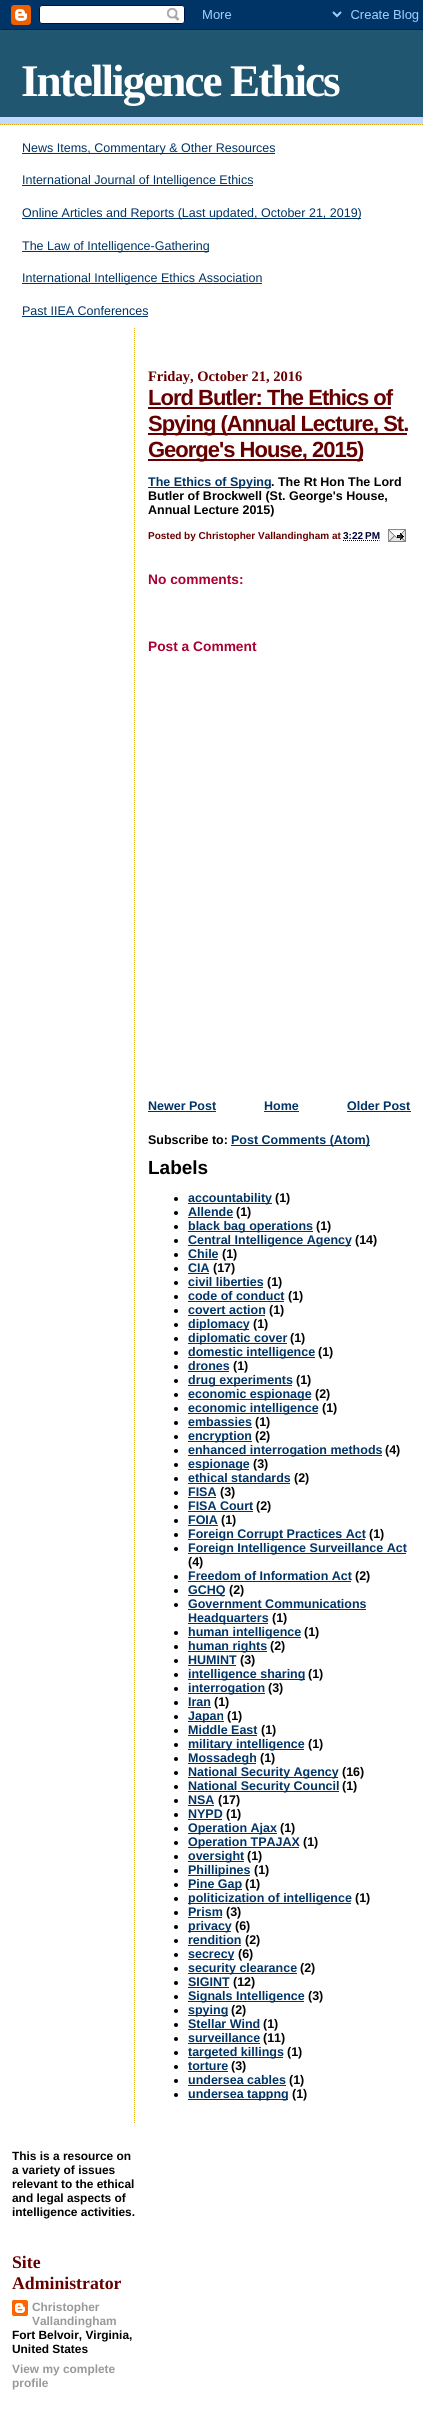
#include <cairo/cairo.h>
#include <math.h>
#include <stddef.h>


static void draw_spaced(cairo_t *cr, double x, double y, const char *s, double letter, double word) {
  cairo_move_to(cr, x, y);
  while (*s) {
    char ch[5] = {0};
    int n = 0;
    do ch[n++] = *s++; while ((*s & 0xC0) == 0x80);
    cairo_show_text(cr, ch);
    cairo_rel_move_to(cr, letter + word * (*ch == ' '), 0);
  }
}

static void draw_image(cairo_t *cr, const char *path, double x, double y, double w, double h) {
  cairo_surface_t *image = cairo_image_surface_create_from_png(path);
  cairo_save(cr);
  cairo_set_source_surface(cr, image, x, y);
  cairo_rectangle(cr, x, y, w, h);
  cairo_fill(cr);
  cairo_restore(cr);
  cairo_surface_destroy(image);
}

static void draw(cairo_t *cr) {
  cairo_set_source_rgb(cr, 1, 1, 1);
  cairo_paint(cr);
  draw_image(cr, "images/1.png", 0, 0, 423, 30);
  cairo_set_source_rgb(cr, 195 / 255.0, 217 / 255.0, 1);
  cairo_rectangle(cr, 0, 117, 423, 8);
  cairo_fill(cr);
  cairo_new_path(cr);
  cairo_move_to(cr, 0, 124.5);
  cairo_line_to(cr, 423, 124.5);
  cairo_set_source_rgb(cr, 224 / 255.0, 173 / 255.0, 18 / 255.0);
  cairo_set_line_width(cr, 1);
  cairo_set_dash(cr, (double[]){1, 1}, 2, 0);
  cairo_stroke(cr);
  cairo_set_source_rgb(cr, 33 / 255.0, 86 / 255.0, 112 / 255.0);
  cairo_rectangle(cr, 0, 30, 423, 87);
  cairo_fill(cr);
  cairo_set_source_rgb(cr, 0, 51 / 255.0, 102 / 255.0);
  cairo_rectangle(cr, 22, 153, 253, 1);
  cairo_fill(cr);
  cairo_rectangle(cr, 22, 185, 231, 1);
  cairo_fill(cr);
  cairo_rectangle(cr, 22, 218, 339, 1);
  cairo_fill(cr);
  cairo_rectangle(cr, 22, 251, 187, 1);
  cairo_fill(cr);
  cairo_rectangle(cr, 22, 283, 240, 1);
  cairo_fill(cr);
  cairo_rectangle(cr, 22, 316, 126, 1);
  cairo_fill(cr);
  cairo_new_path(cr);
  cairo_move_to(cr, 134.5, 328);
  cairo_line_to(cr, 134.5, 2124);
  cairo_set_source_rgb(cr, 224 / 255.0, 173 / 255.0, 18 / 255.0);
  cairo_stroke(cr);
  cairo_set_source_rgb(cr, 102 / 255.0, 0, 0);
  cairo_rectangle(cr, 148, 407, 243, 2);
  cairo_fill(cr);
  cairo_rectangle(cr, 148, 433, 259, 2);
  cairo_fill(cr);
  cairo_rectangle(cr, 148, 459, 215, 2);
  cairo_fill(cr);
  cairo_set_source_rgb(cr, 0, 51 / 255.0, 102 / 255.0);
  cairo_rectangle(cr, 148, 487, 123, 1);
  cairo_fill(cr);
  cairo_new_path(cr);
  cairo_move_to(cr, 343, 540.5);
  cairo_line_to(cr, 379.5, 540.5);
  cairo_set_source_rgb(cr, 0, 0, 51 / 255.0);
  cairo_stroke(cr);
  draw_image(cr, "images/2.png", 388, 529, 18, 13);
  cairo_set_source_rgb(cr, 0, 51 / 255.0, 102 / 255.0);
  cairo_rectangle(cr, 148, 1111, 68, 1);
  cairo_fill(cr);
  cairo_rectangle(cr, 264, 1111, 35, 1);
  cairo_fill(cr);
  cairo_rectangle(cr, 347, 1111, 64, 1);
  cairo_fill(cr);
  cairo_rectangle(cr, 231, 1145, 139, 1);
  cairo_fill(cr);
  cairo_set_source_rgb(cr, 0, 0, 0);
  cairo_arc(cr, 176, 1199, 2, 0, 2 * M_PI);
  cairo_fill(cr);
  cairo_set_source_rgb(cr, 0, 51 / 255.0, 102 / 255.0);
  cairo_rectangle(cr, 188, 1203, 84, 1);
  cairo_fill(cr);
  cairo_set_source_rgb(cr, 0, 0, 0);
  cairo_arc(cr, 176, 1213, 2, 0, 2 * M_PI);
  cairo_fill(cr);
  cairo_set_source_rgb(cr, 0, 51 / 255.0, 102 / 255.0);
  cairo_rectangle(cr, 188, 1217, 45, 1);
  cairo_fill(cr);
  cairo_set_source_rgb(cr, 0, 0, 0);
  cairo_arc(cr, 176, 1227, 2, 0, 2 * M_PI);
  cairo_fill(cr);
  cairo_set_source_rgb(cr, 0, 51 / 255.0, 102 / 255.0);
  cairo_rectangle(cr, 188, 1231, 125, 1);
  cairo_fill(cr);
  cairo_set_source_rgb(cr, 0, 0, 0);
  cairo_arc(cr, 176, 1241, 2, 0, 2 * M_PI);
  cairo_fill(cr);
  cairo_set_source_rgb(cr, 0, 51 / 255.0, 102 / 255.0);
  cairo_rectangle(cr, 188, 1245, 163, 1);
  cairo_fill(cr);
  cairo_set_source_rgb(cr, 0, 0, 0);
  cairo_arc(cr, 176, 1255, 2, 0, 2 * M_PI);
  cairo_fill(cr);
  cairo_set_source_rgb(cr, 0, 51 / 255.0, 102 / 255.0);
  cairo_rectangle(cr, 188, 1259, 30, 1);
  cairo_fill(cr);
  cairo_set_source_rgb(cr, 0, 0, 0);
  cairo_arc(cr, 176, 1269, 2, 0, 2 * M_PI);
  cairo_fill(cr);
  cairo_set_source_rgb(cr, 0, 51 / 255.0, 102 / 255.0);
  cairo_rectangle(cr, 188, 1273, 21, 1);
  cairo_fill(cr);
  cairo_set_source_rgb(cr, 0, 0, 0);
  cairo_arc(cr, 176, 1283, 2, 0, 2 * M_PI);
  cairo_fill(cr);
  cairo_set_source_rgb(cr, 0, 51 / 255.0, 102 / 255.0);
  cairo_rectangle(cr, 188, 1287, 75, 1);
  cairo_fill(cr);
  cairo_set_source_rgb(cr, 0, 0, 0);
  cairo_arc(cr, 176, 1297, 2, 0, 2 * M_PI);
  cairo_fill(cr);
  cairo_set_source_rgb(cr, 0, 51 / 255.0, 102 / 255.0);
  cairo_rectangle(cr, 188, 1301, 96, 1);
  cairo_fill(cr);
  cairo_set_source_rgb(cr, 0, 0, 0);
  cairo_arc(cr, 176, 1311, 2, 0, 2 * M_PI);
  cairo_fill(cr);
  cairo_set_source_rgb(cr, 0, 51 / 255.0, 102 / 255.0);
  cairo_rectangle(cr, 188, 1315, 77, 1);
  cairo_fill(cr);
  cairo_set_source_rgb(cr, 0, 0, 0);
  cairo_arc(cr, 176, 1325, 2, 0, 2 * M_PI);
  cairo_fill(cr);
  cairo_set_source_rgb(cr, 0, 51 / 255.0, 102 / 255.0);
  cairo_rectangle(cr, 188, 1329, 61, 1);
  cairo_fill(cr);
  cairo_set_source_rgb(cr, 0, 0, 0);
  cairo_arc(cr, 176, 1339, 2, 0, 2 * M_PI);
  cairo_fill(cr);
  cairo_set_source_rgb(cr, 0, 51 / 255.0, 102 / 255.0);
  cairo_rectangle(cr, 188, 1343, 99, 1);
  cairo_fill(cr);
  cairo_set_source_rgb(cr, 0, 0, 0);
  cairo_arc(cr, 176, 1353, 2, 0, 2 * M_PI);
  cairo_fill(cr);
  cairo_set_source_rgb(cr, 0, 51 / 255.0, 102 / 255.0);
  cairo_rectangle(cr, 188, 1357, 127, 1);
  cairo_fill(cr);
  cairo_set_source_rgb(cr, 0, 0, 0);
  cairo_arc(cr, 176, 1367, 2, 0, 2 * M_PI);
  cairo_fill(cr);
  cairo_set_source_rgb(cr, 0, 51 / 255.0, 102 / 255.0);
  cairo_rectangle(cr, 188, 1371, 41, 1);
  cairo_fill(cr);
  cairo_set_source_rgb(cr, 0, 0, 0);
  cairo_arc(cr, 176, 1381, 2, 0, 2 * M_PI);
  cairo_fill(cr);
  cairo_set_source_rgb(cr, 0, 51 / 255.0, 102 / 255.0);
  cairo_rectangle(cr, 188, 1385, 104, 1);
  cairo_fill(cr);
  cairo_set_source_rgb(cr, 0, 0, 0);
  cairo_arc(cr, 176, 1395, 2, 0, 2 * M_PI);
  cairo_fill(cr);
  cairo_set_source_rgb(cr, 0, 51 / 255.0, 102 / 255.0);
  cairo_rectangle(cr, 188, 1399, 123, 1);
  cairo_fill(cr);
  cairo_set_source_rgb(cr, 0, 0, 0);
  cairo_arc(cr, 176, 1409, 2, 0, 2 * M_PI);
  cairo_fill(cr);
  cairo_set_source_rgb(cr, 0, 51 / 255.0, 102 / 255.0);
  cairo_rectangle(cr, 188, 1413, 130, 1);
  cairo_fill(cr);
  cairo_set_source_rgb(cr, 0, 0, 0);
  cairo_arc(cr, 176, 1423, 2, 0, 2 * M_PI);
  cairo_fill(cr);
  cairo_set_source_rgb(cr, 0, 51 / 255.0, 102 / 255.0);
  cairo_rectangle(cr, 188, 1427, 64, 1);
  cairo_fill(cr);
  cairo_set_source_rgb(cr, 0, 0, 0);
  cairo_arc(cr, 176, 1437, 2, 0, 2 * M_PI);
  cairo_fill(cr);
  cairo_set_source_rgb(cr, 0, 51 / 255.0, 102 / 255.0);
  cairo_rectangle(cr, 188, 1441, 64, 1);
  cairo_fill(cr);
  cairo_set_source_rgb(cr, 0, 0, 0);
  cairo_arc(cr, 176, 1451, 2, 0, 2 * M_PI);
  cairo_fill(cr);
  cairo_set_source_rgb(cr, 0, 51 / 255.0, 102 / 255.0);
  cairo_rectangle(cr, 188, 1455, 194, 1);
  cairo_fill(cr);
  cairo_set_source_rgb(cr, 0, 0, 0);
  cairo_arc(cr, 176, 1465, 2, 0, 2 * M_PI);
  cairo_fill(cr);
  cairo_set_source_rgb(cr, 0, 51 / 255.0, 102 / 255.0);
  cairo_rectangle(cr, 188, 1469, 61, 1);
  cairo_fill(cr);
  cairo_set_source_rgb(cr, 0, 0, 0);
  cairo_arc(cr, 176, 1479, 2, 0, 2 * M_PI);
  cairo_fill(cr);
  cairo_set_source_rgb(cr, 0, 51 / 255.0, 102 / 255.0);
  cairo_rectangle(cr, 188, 1483, 102, 1);
  cairo_fill(cr);
  cairo_set_source_rgb(cr, 0, 0, 0);
  cairo_arc(cr, 176, 1493, 2, 0, 2 * M_PI);
  cairo_fill(cr);
  cairo_set_source_rgb(cr, 0, 51 / 255.0, 102 / 255.0);
  cairo_rectangle(cr, 188, 1497, 28, 1);
  cairo_fill(cr);
  cairo_set_source_rgb(cr, 0, 0, 0);
  cairo_arc(cr, 176, 1507, 2, 0, 2 * M_PI);
  cairo_fill(cr);
  cairo_set_source_rgb(cr, 0, 51 / 255.0, 102 / 255.0);
  cairo_rectangle(cr, 188, 1511, 65, 1);
  cairo_fill(cr);
  cairo_set_source_rgb(cr, 0, 0, 0);
  cairo_arc(cr, 176, 1521, 2, 0, 2 * M_PI);
  cairo_fill(cr);
  cairo_set_source_rgb(cr, 0, 51 / 255.0, 102 / 255.0);
  cairo_rectangle(cr, 188, 1525, 30, 1);
  cairo_fill(cr);
  cairo_set_source_rgb(cr, 0, 0, 0);
  cairo_arc(cr, 176, 1535, 2, 0, 2 * M_PI);
  cairo_fill(cr);
  cairo_set_source_rgb(cr, 0, 51 / 255.0, 102 / 255.0);
  cairo_rectangle(cr, 188, 1539, 177, 1);
  cairo_fill(cr);
  cairo_set_source_rgb(cr, 0, 0, 0);
  cairo_arc(cr, 176, 1549, 2, 0, 2 * M_PI);
  cairo_fill(cr);
  cairo_set_source_rgb(cr, 0, 51 / 255.0, 102 / 255.0);
  cairo_rectangle(cr, 188, 1553, 218, 1);
  cairo_fill(cr);
  cairo_set_source_rgb(cr, 0, 0, 0);
  cairo_arc(cr, 176, 1577, 2, 0, 2 * M_PI);
  cairo_fill(cr);
  cairo_set_source_rgb(cr, 0, 51 / 255.0, 102 / 255.0);
  cairo_rectangle(cr, 188, 1581, 163, 1);
  cairo_fill(cr);
  cairo_set_source_rgb(cr, 0, 0, 0);
  cairo_arc(cr, 176, 1591, 2, 0, 2 * M_PI);
  cairo_fill(cr);
  cairo_set_source_rgb(cr, 0, 51 / 255.0, 102 / 255.0);
  cairo_rectangle(cr, 188, 1595, 37, 1);
  cairo_fill(cr);
  cairo_set_source_rgb(cr, 0, 0, 0);
  cairo_arc(cr, 176, 1605, 2, 0, 2 * M_PI);
  cairo_fill(cr);
  cairo_set_source_rgb(cr, 0, 51 / 255.0, 102 / 255.0);
  cairo_rectangle(cr, 188, 1609, 178, 1);
  cairo_fill(cr);
  cairo_rectangle(cr, 188, 1623, 80, 1);
  cairo_fill(cr);
  cairo_set_source_rgb(cr, 0, 0, 0);
  cairo_arc(cr, 176, 1633, 2, 0, 2 * M_PI);
  cairo_fill(cr);
  cairo_set_source_rgb(cr, 0, 51 / 255.0, 102 / 255.0);
  cairo_rectangle(cr, 188, 1637, 113, 1);
  cairo_fill(cr);
  cairo_set_source_rgb(cr, 0, 0, 0);
  cairo_arc(cr, 176, 1647, 2, 0, 2 * M_PI);
  cairo_fill(cr);
  cairo_set_source_rgb(cr, 0, 51 / 255.0, 102 / 255.0);
  cairo_rectangle(cr, 188, 1651, 79, 1);
  cairo_fill(cr);
  cairo_set_source_rgb(cr, 0, 0, 0);
  cairo_arc(cr, 176, 1661, 2, 0, 2 * M_PI);
  cairo_fill(cr);
  cairo_set_source_rgb(cr, 0, 51 / 255.0, 102 / 255.0);
  cairo_rectangle(cr, 188, 1665, 48, 1);
  cairo_fill(cr);
  cairo_set_source_rgb(cr, 0, 0, 0);
  cairo_arc(cr, 176, 1675, 2, 0, 2 * M_PI);
  cairo_fill(cr);
  cairo_set_source_rgb(cr, 0, 51 / 255.0, 102 / 255.0);
  cairo_rectangle(cr, 188, 1679, 117, 1);
  cairo_fill(cr);
  cairo_set_source_rgb(cr, 0, 0, 0);
  cairo_arc(cr, 176, 1689, 2, 0, 2 * M_PI);
  cairo_fill(cr);
  cairo_set_source_rgb(cr, 0, 51 / 255.0, 102 / 255.0);
  cairo_rectangle(cr, 188, 1693, 77, 1);
  cairo_fill(cr);
  cairo_set_source_rgb(cr, 0, 0, 0);
  cairo_arc(cr, 176, 1703, 2, 0, 2 * M_PI);
  cairo_fill(cr);
  cairo_set_source_rgb(cr, 0, 51 / 255.0, 102 / 255.0);
  cairo_rectangle(cr, 188, 1707, 23, 1);
  cairo_fill(cr);
  cairo_set_source_rgb(cr, 0, 0, 0);
  cairo_arc(cr, 176, 1717, 2, 0, 2 * M_PI);
  cairo_fill(cr);
  cairo_set_source_rgb(cr, 0, 51 / 255.0, 102 / 255.0);
  cairo_rectangle(cr, 188, 1721, 36, 1);
  cairo_fill(cr);
  cairo_set_source_rgb(cr, 0, 0, 0);
  cairo_arc(cr, 176, 1731, 2, 0, 2 * M_PI);
  cairo_fill(cr);
  cairo_set_source_rgb(cr, 0, 51 / 255.0, 102 / 255.0);
  cairo_rectangle(cr, 188, 1735, 69, 1);
  cairo_fill(cr);
  cairo_set_source_rgb(cr, 0, 0, 0);
  cairo_arc(cr, 176, 1745, 2, 0, 2 * M_PI);
  cairo_fill(cr);
  cairo_set_source_rgb(cr, 0, 51 / 255.0, 102 / 255.0);
  cairo_rectangle(cr, 188, 1749, 116, 1);
  cairo_fill(cr);
  cairo_set_source_rgb(cr, 0, 0, 0);
  cairo_arc(cr, 176, 1759, 2, 0, 2 * M_PI);
  cairo_fill(cr);
  cairo_set_source_rgb(cr, 0, 51 / 255.0, 102 / 255.0);
  cairo_rectangle(cr, 188, 1763, 68, 1);
  cairo_fill(cr);
  cairo_set_source_rgb(cr, 0, 0, 0);
  cairo_arc(cr, 176, 1773, 2, 0, 2 * M_PI);
  cairo_fill(cr);
  cairo_set_source_rgb(cr, 0, 51 / 255.0, 102 / 255.0);
  cairo_rectangle(cr, 188, 1777, 150, 1);
  cairo_fill(cr);
  cairo_set_source_rgb(cr, 0, 0, 0);
  cairo_arc(cr, 176, 1787, 2, 0, 2 * M_PI);
  cairo_fill(cr);
  cairo_set_source_rgb(cr, 0, 51 / 255.0, 102 / 255.0);
  cairo_rectangle(cr, 188, 1791, 151, 1);
  cairo_fill(cr);
  cairo_set_source_rgb(cr, 0, 0, 0);
  cairo_arc(cr, 176, 1801, 2, 0, 2 * M_PI);
  cairo_fill(cr);
  cairo_set_source_rgb(cr, 0, 51 / 255.0, 102 / 255.0);
  cairo_rectangle(cr, 188, 1805, 26, 1);
  cairo_fill(cr);
  cairo_set_source_rgb(cr, 0, 0, 0);
  cairo_arc(cr, 176, 1815, 2, 0, 2 * M_PI);
  cairo_fill(cr);
  cairo_set_source_rgb(cr, 0, 51 / 255.0, 102 / 255.0);
  cairo_rectangle(cr, 188, 1819, 34, 1);
  cairo_fill(cr);
  cairo_set_source_rgb(cr, 0, 0, 0);
  cairo_arc(cr, 176, 1829, 2, 0, 2 * M_PI);
  cairo_fill(cr);
  cairo_set_source_rgb(cr, 0, 51 / 255.0, 102 / 255.0);
  cairo_rectangle(cr, 188, 1833, 89, 1);
  cairo_fill(cr);
  cairo_set_source_rgb(cr, 0, 0, 0);
  cairo_arc(cr, 176, 1843, 2, 0, 2 * M_PI);
  cairo_fill(cr);
  cairo_set_source_rgb(cr, 0, 51 / 255.0, 102 / 255.0);
  cairo_rectangle(cr, 188, 1847, 111, 1);
  cairo_fill(cr);
  cairo_set_source_rgb(cr, 0, 0, 0);
  cairo_arc(cr, 176, 1857, 2, 0, 2 * M_PI);
  cairo_fill(cr);
  cairo_set_source_rgb(cr, 0, 51 / 255.0, 102 / 255.0);
  cairo_rectangle(cr, 188, 1861, 56, 1);
  cairo_fill(cr);
  cairo_set_source_rgb(cr, 0, 0, 0);
  cairo_arc(cr, 176, 1871, 2, 0, 2 * M_PI);
  cairo_fill(cr);
  cairo_set_source_rgb(cr, 0, 51 / 255.0, 102 / 255.0);
  cairo_rectangle(cr, 188, 1875, 62, 1);
  cairo_fill(cr);
  cairo_set_source_rgb(cr, 0, 0, 0);
  cairo_arc(cr, 176, 1885, 2, 0, 2 * M_PI);
  cairo_fill(cr);
  cairo_set_source_rgb(cr, 0, 51 / 255.0, 102 / 255.0);
  cairo_rectangle(cr, 188, 1889, 54, 1);
  cairo_fill(cr);
  cairo_set_source_rgb(cr, 0, 0, 0);
  cairo_arc(cr, 176, 1899, 2, 0, 2 * M_PI);
  cairo_fill(cr);
  cairo_set_source_rgb(cr, 0, 51 / 255.0, 102 / 255.0);
  cairo_rectangle(cr, 188, 1903, 163, 1);
  cairo_fill(cr);
  cairo_set_source_rgb(cr, 0, 0, 0);
  cairo_arc(cr, 176, 1913, 2, 0, 2 * M_PI);
  cairo_fill(cr);
  cairo_set_source_rgb(cr, 0, 51 / 255.0, 102 / 255.0);
  cairo_rectangle(cr, 188, 1917, 34, 1);
  cairo_fill(cr);
  cairo_set_source_rgb(cr, 0, 0, 0);
  cairo_arc(cr, 176, 1927, 2, 0, 2 * M_PI);
  cairo_fill(cr);
  cairo_set_source_rgb(cr, 0, 51 / 255.0, 102 / 255.0);
  cairo_rectangle(cr, 188, 1931, 43, 1);
  cairo_fill(cr);
  cairo_set_source_rgb(cr, 0, 0, 0);
  cairo_arc(cr, 176, 1941, 2, 0, 2 * M_PI);
  cairo_fill(cr);
  cairo_set_source_rgb(cr, 0, 51 / 255.0, 102 / 255.0);
  cairo_rectangle(cr, 188, 1945, 53, 1);
  cairo_fill(cr);
  cairo_set_source_rgb(cr, 0, 0, 0);
  cairo_arc(cr, 176, 1955, 2, 0, 2 * M_PI);
  cairo_fill(cr);
  cairo_set_source_rgb(cr, 0, 51 / 255.0, 102 / 255.0);
  cairo_rectangle(cr, 188, 1959, 46, 1);
  cairo_fill(cr);
  cairo_set_source_rgb(cr, 0, 0, 0);
  cairo_arc(cr, 176, 1969, 2, 0, 2 * M_PI);
  cairo_fill(cr);
  cairo_set_source_rgb(cr, 0, 51 / 255.0, 102 / 255.0);
  cairo_rectangle(cr, 188, 1973, 109, 1);
  cairo_fill(cr);
  cairo_set_source_rgb(cr, 0, 0, 0);
  cairo_arc(cr, 176, 1983, 2, 0, 2 * M_PI);
  cairo_fill(cr);
  cairo_set_source_rgb(cr, 0, 51 / 255.0, 102 / 255.0);
  cairo_rectangle(cr, 188, 1987, 41, 1);
  cairo_fill(cr);
  cairo_set_source_rgb(cr, 0, 0, 0);
  cairo_arc(cr, 176, 1997, 2, 0, 2 * M_PI);
  cairo_fill(cr);
  cairo_set_source_rgb(cr, 0, 51 / 255.0, 102 / 255.0);
  cairo_rectangle(cr, 188, 2001, 116, 1);
  cairo_fill(cr);
  cairo_set_source_rgb(cr, 0, 0, 0);
  cairo_arc(cr, 176, 2011, 2, 0, 2 * M_PI);
  cairo_fill(cr);
  cairo_set_source_rgb(cr, 0, 51 / 255.0, 102 / 255.0);
  cairo_rectangle(cr, 188, 2015, 40, 1);
  cairo_fill(cr);
  cairo_set_source_rgb(cr, 0, 0, 0);
  cairo_arc(cr, 176, 2025, 2, 0, 2 * M_PI);
  cairo_fill(cr);
  cairo_set_source_rgb(cr, 0, 51 / 255.0, 102 / 255.0);
  cairo_rectangle(cr, 188, 2029, 72, 1);
  cairo_fill(cr);
  cairo_set_source_rgb(cr, 0, 0, 0);
  cairo_arc(cr, 176, 2039, 2, 0, 2 * M_PI);
  cairo_fill(cr);
  cairo_set_source_rgb(cr, 0, 51 / 255.0, 102 / 255.0);
  cairo_rectangle(cr, 188, 2043, 72, 1);
  cairo_fill(cr);
  cairo_set_source_rgb(cr, 0, 0, 0);
  cairo_arc(cr, 176, 2053, 2, 0, 2 * M_PI);
  cairo_fill(cr);
  cairo_set_source_rgb(cr, 0, 51 / 255.0, 102 / 255.0);
  cairo_rectangle(cr, 188, 2057, 95, 1);
  cairo_fill(cr);
  cairo_set_source_rgb(cr, 0, 0, 0);
  cairo_arc(cr, 176, 2067, 2, 0, 2 * M_PI);
  cairo_fill(cr);
  cairo_set_source_rgb(cr, 0, 51 / 255.0, 102 / 255.0);
  cairo_rectangle(cr, 188, 2071, 40, 1);
  cairo_fill(cr);
  cairo_set_source_rgb(cr, 0, 0, 0);
  cairo_arc(cr, 176, 2081, 2, 0, 2 * M_PI);
  cairo_fill(cr);
  cairo_set_source_rgb(cr, 0, 51 / 255.0, 102 / 255.0);
  cairo_rectangle(cr, 188, 2085, 98, 1);
  cairo_fill(cr);
  cairo_set_source_rgb(cr, 0, 0, 0);
  cairo_arc(cr, 176, 2095, 2, 0, 2 * M_PI);
  cairo_fill(cr);
  cairo_set_source_rgb(cr, 0, 51 / 255.0, 102 / 255.0);
  cairo_rectangle(cr, 188, 2099, 100, 1);
  cairo_fill(cr);
  draw_image(cr, "images/3.png", 12, 2300, 16, 16);
  cairo_select_font_face(cr, "Liberation Serif", CAIRO_FONT_SLANT_NORMAL, CAIRO_FONT_WEIGHT_BOLD);
  cairo_set_font_size(cr, 45.25);
  cairo_set_source_rgb(cr, 1, 1, 1);
  draw_spaced(cr, 21, 96, "Intelligence Ethics", -2, 0);
  cairo_select_font_face(cr, "Liberation Sans", CAIRO_FONT_SLANT_NORMAL, CAIRO_FONT_WEIGHT_NORMAL);
  cairo_set_font_size(cr, 12.5);
  cairo_set_source_rgb(cr, 0, 51 / 255.0, 102 / 255.0);
  cairo_move_to(cr, 22, 152);
  cairo_show_text(cr, "News Items, Commentary & Other Resources");
  cairo_move_to(cr, 22, 184);
  cairo_show_text(cr, "International Journal of Intelligence Ethics");
  cairo_move_to(cr, 22, 217);
  cairo_show_text(cr, "Online Articles and Reports (Last updated, October 21, 2019)");
  cairo_move_to(cr, 22, 250);
  cairo_show_text(cr, "The Law of Intelligence-Gathering");
  cairo_move_to(cr, 22, 282);
  cairo_show_text(cr, "International Intelligence Ethics Association");
  cairo_move_to(cr, 22, 315);
  cairo_show_text(cr, "Past IIEA Conferences");
  cairo_select_font_face(cr, "Liberation Serif", CAIRO_FONT_SLANT_NORMAL, CAIRO_FONT_WEIGHT_BOLD);
  cairo_set_font_size(cr, 14.5);
  cairo_set_source_rgb(cr, 102 / 255.0, 0, 0);
  cairo_move_to(cr, 148, 381);
  cairo_show_text(cr, "Friday, October 21, 2016");
  cairo_select_font_face(cr, "Liberation Sans", CAIRO_FONT_SLANT_NORMAL, CAIRO_FONT_WEIGHT_BOLD);
  cairo_set_font_size(cr, 22);
  draw_spaced(cr, 148, 405, "Lord Butler: The Ethics of", -1, 0);
  draw_spaced(cr, 148, 431, "Spying (Annual Lecture, St.", -1, 0);
  draw_spaced(cr, 148, 457, "George's House, 2015)", -1, 0);
  cairo_set_font_size(cr, 12.5);
  cairo_set_source_rgb(cr, 0, 51 / 255.0, 102 / 255.0);
  cairo_move_to(cr, 148, 486);
  cairo_show_text(cr, "The Ethics of Spying");
  cairo_set_source_rgb(cr, 0, 0, 0);
  cairo_move_to(cr, 271, 486);
  cairo_show_text(cr, ". The Rt Hon The Lord");
  cairo_move_to(cr, 148, 500);
  cairo_show_text(cr, "Butler of Brockwell (St. George's House,");
  cairo_move_to(cr, 148, 514);
  cairo_show_text(cr, "Annual Lecture 2015)");
  cairo_set_font_size(cr, 10);
  cairo_set_source_rgb(cr, 102 / 255.0, 0, 0);
  cairo_move_to(cr, 148, 539);
  cairo_show_text(cr, "Posted by Christopher Vallandingham at");
  cairo_set_source_rgb(cr, 0, 0, 51 / 255.0);
  cairo_move_to(cr, 343, 539);
  cairo_show_text(cr, "3:22 PM");
  cairo_set_font_size(cr, 13.75);
  cairo_set_source_rgb(cr, 170 / 255.0, 0, 51 / 255.0);
  cairo_move_to(cr, 148, 584);
  cairo_show_text(cr, "No comments:");
  cairo_move_to(cr, 148, 651);
  cairo_show_text(cr, "Post a Comment");
  cairo_set_font_size(cr, 12.5);
  cairo_set_source_rgb(cr, 0, 51 / 255.0, 102 / 255.0);
  cairo_move_to(cr, 148, 1110);
  cairo_show_text(cr, "Newer Post");
  cairo_move_to(cr, 264, 1110);
  cairo_show_text(cr, "Home");
  cairo_move_to(cr, 347, 1110);
  cairo_show_text(cr, "Older Post");
  cairo_set_source_rgb(cr, 0, 0, 0);
  cairo_move_to(cr, 148, 1144);
  cairo_show_text(cr, "Subscribe to:");
  cairo_set_source_rgb(cr, 0, 51 / 255.0, 102 / 255.0);
  cairo_move_to(cr, 231, 1144);
  cairo_show_text(cr, "Post Comments (Atom)");
  cairo_set_font_size(cr, 19);
  cairo_set_source_rgb(cr, 0, 0, 0);
  cairo_move_to(cr, 148, 1174);
  cairo_show_text(cr, "Labels");
  cairo_set_font_size(cr, 12.5);
  cairo_set_source_rgb(cr, 0, 51 / 255.0, 102 / 255.0);
  cairo_move_to(cr, 188, 1202);
  cairo_show_text(cr, "accountability");
  cairo_set_source_rgb(cr, 0, 0, 0);
  cairo_move_to(cr, 275, 1202);
  cairo_show_text(cr, "(1)");
  cairo_set_source_rgb(cr, 0, 51 / 255.0, 102 / 255.0);
  cairo_move_to(cr, 188, 1216);
  cairo_show_text(cr, "Allende");
  cairo_set_source_rgb(cr, 0, 0, 0);
  cairo_move_to(cr, 236, 1216);
  cairo_show_text(cr, "(1)");
  cairo_set_source_rgb(cr, 0, 51 / 255.0, 102 / 255.0);
  cairo_move_to(cr, 188, 1230);
  cairo_show_text(cr, "black bag operations");
  cairo_set_source_rgb(cr, 0, 0, 0);
  cairo_move_to(cr, 316, 1230);
  cairo_show_text(cr, "(1)");
  cairo_set_source_rgb(cr, 0, 51 / 255.0, 102 / 255.0);
  cairo_move_to(cr, 188, 1244);
  cairo_show_text(cr, "Central Intelligence Agency");
  cairo_set_source_rgb(cr, 0, 0, 0);
  cairo_move_to(cr, 355, 1244);
  cairo_show_text(cr, "(14)");
  cairo_set_source_rgb(cr, 0, 51 / 255.0, 102 / 255.0);
  cairo_move_to(cr, 188, 1258);
  cairo_show_text(cr, "Chile");
  cairo_set_source_rgb(cr, 0, 0, 0);
  cairo_move_to(cr, 222, 1258);
  cairo_show_text(cr, "(1)");
  cairo_set_source_rgb(cr, 0, 51 / 255.0, 102 / 255.0);
  cairo_move_to(cr, 188, 1272);
  cairo_show_text(cr, "CIA");
  cairo_set_source_rgb(cr, 0, 0, 0);
  cairo_move_to(cr, 213, 1272);
  cairo_show_text(cr, "(17)");
  cairo_set_source_rgb(cr, 0, 51 / 255.0, 102 / 255.0);
  cairo_move_to(cr, 188, 1286);
  cairo_show_text(cr, "civil liberties");
  cairo_set_source_rgb(cr, 0, 0, 0);
  cairo_move_to(cr, 267, 1286);
  cairo_show_text(cr, "(1)");
  cairo_set_source_rgb(cr, 0, 51 / 255.0, 102 / 255.0);
  cairo_move_to(cr, 188, 1300);
  cairo_show_text(cr, "code of conduct");
  cairo_set_source_rgb(cr, 0, 0, 0);
  cairo_move_to(cr, 288, 1300);
  cairo_show_text(cr, "(1)");
  cairo_set_source_rgb(cr, 0, 51 / 255.0, 102 / 255.0);
  cairo_move_to(cr, 188, 1314);
  cairo_show_text(cr, "covert action");
  cairo_set_source_rgb(cr, 0, 0, 0);
  cairo_move_to(cr, 269, 1314);
  cairo_show_text(cr, "(1)");
  cairo_set_source_rgb(cr, 0, 51 / 255.0, 102 / 255.0);
  cairo_move_to(cr, 188, 1328);
  cairo_show_text(cr, "diplomacy");
  cairo_set_source_rgb(cr, 0, 0, 0);
  cairo_move_to(cr, 253, 1328);
  cairo_show_text(cr, "(1)");
  cairo_set_source_rgb(cr, 0, 51 / 255.0, 102 / 255.0);
  cairo_move_to(cr, 188, 1342);
  cairo_show_text(cr, "diplomatic cover");
  cairo_set_source_rgb(cr, 0, 0, 0);
  cairo_move_to(cr, 290, 1342);
  cairo_show_text(cr, "(1)");
  cairo_set_source_rgb(cr, 0, 51 / 255.0, 102 / 255.0);
  cairo_move_to(cr, 188, 1356);
  cairo_show_text(cr, "domestic intelligence");
  cairo_set_source_rgb(cr, 0, 0, 0);
  cairo_move_to(cr, 318, 1356);
  cairo_show_text(cr, "(1)");
  cairo_set_source_rgb(cr, 0, 51 / 255.0, 102 / 255.0);
  cairo_move_to(cr, 188, 1370);
  cairo_show_text(cr, "drones");
  cairo_set_source_rgb(cr, 0, 0, 0);
  cairo_move_to(cr, 233, 1370);
  cairo_show_text(cr, "(1)");
  cairo_set_source_rgb(cr, 0, 51 / 255.0, 102 / 255.0);
  cairo_move_to(cr, 188, 1384);
  cairo_show_text(cr, "drug experiments");
  cairo_set_source_rgb(cr, 0, 0, 0);
  cairo_move_to(cr, 296, 1384);
  cairo_show_text(cr, "(1)");
  cairo_set_source_rgb(cr, 0, 51 / 255.0, 102 / 255.0);
  cairo_move_to(cr, 188, 1398);
  cairo_show_text(cr, "economic espionage");
  cairo_set_source_rgb(cr, 0, 0, 0);
  cairo_move_to(cr, 315, 1398);
  cairo_show_text(cr, "(2)");
  cairo_set_source_rgb(cr, 0, 51 / 255.0, 102 / 255.0);
  cairo_move_to(cr, 188, 1412);
  cairo_show_text(cr, "economic intelligence");
  cairo_set_source_rgb(cr, 0, 0, 0);
  cairo_move_to(cr, 322, 1412);
  cairo_show_text(cr, "(1)");
  cairo_set_source_rgb(cr, 0, 51 / 255.0, 102 / 255.0);
  cairo_move_to(cr, 188, 1426);
  cairo_show_text(cr, "embassies");
  cairo_set_source_rgb(cr, 0, 0, 0);
  cairo_move_to(cr, 255, 1426);
  cairo_show_text(cr, "(1)");
  cairo_set_source_rgb(cr, 0, 51 / 255.0, 102 / 255.0);
  cairo_move_to(cr, 188, 1440);
  cairo_show_text(cr, "encryption");
  cairo_set_source_rgb(cr, 0, 0, 0);
  cairo_move_to(cr, 255, 1440);
  cairo_show_text(cr, "(2)");
  cairo_set_source_rgb(cr, 0, 51 / 255.0, 102 / 255.0);
  cairo_move_to(cr, 188, 1454);
  cairo_show_text(cr, "enhanced interrogation methods");
  cairo_set_source_rgb(cr, 0, 0, 0);
  cairo_move_to(cr, 385, 1454);
  cairo_show_text(cr, "(4)");
  cairo_set_source_rgb(cr, 0, 51 / 255.0, 102 / 255.0);
  cairo_move_to(cr, 188, 1468);
  cairo_show_text(cr, "espionage");
  cairo_set_source_rgb(cr, 0, 0, 0);
  cairo_move_to(cr, 253, 1468);
  cairo_show_text(cr, "(3)");
  cairo_set_source_rgb(cr, 0, 51 / 255.0, 102 / 255.0);
  cairo_move_to(cr, 188, 1482);
  cairo_show_text(cr, "ethical standards");
  cairo_set_source_rgb(cr, 0, 0, 0);
  cairo_move_to(cr, 294, 1482);
  cairo_show_text(cr, "(2)");
  cairo_set_source_rgb(cr, 0, 51 / 255.0, 102 / 255.0);
  cairo_move_to(cr, 188, 1496);
  cairo_show_text(cr, "FISA");
  cairo_set_source_rgb(cr, 0, 0, 0);
  cairo_move_to(cr, 220, 1496);
  cairo_show_text(cr, "(3)");
  cairo_set_source_rgb(cr, 0, 51 / 255.0, 102 / 255.0);
  cairo_move_to(cr, 188, 1510);
  cairo_show_text(cr, "FISA Court");
  cairo_set_source_rgb(cr, 0, 0, 0);
  cairo_move_to(cr, 256, 1510);
  cairo_show_text(cr, "(2)");
  cairo_set_source_rgb(cr, 0, 51 / 255.0, 102 / 255.0);
  cairo_move_to(cr, 188, 1524);
  cairo_show_text(cr, "FOIA");
  cairo_set_source_rgb(cr, 0, 0, 0);
  cairo_move_to(cr, 221, 1524);
  cairo_show_text(cr, "(1)");
  cairo_set_source_rgb(cr, 0, 51 / 255.0, 102 / 255.0);
  cairo_move_to(cr, 188, 1538);
  cairo_show_text(cr, "Foreign Corrupt Practices Act");
  cairo_set_source_rgb(cr, 0, 0, 0);
  cairo_move_to(cr, 369, 1538);
  cairo_show_text(cr, "(1)");
  cairo_set_source_rgb(cr, 0, 51 / 255.0, 102 / 255.0);
  cairo_move_to(cr, 188, 1552);
  cairo_show_text(cr, "Foreign Intelligence Surveillance Act");
  cairo_set_source_rgb(cr, 0, 0, 0);
  cairo_move_to(cr, 188, 1566);
  cairo_show_text(cr, "(4)");
  cairo_set_source_rgb(cr, 0, 51 / 255.0, 102 / 255.0);
  cairo_move_to(cr, 188, 1580);
  cairo_show_text(cr, "Freedom of Information Act");
  cairo_set_source_rgb(cr, 0, 0, 0);
  cairo_move_to(cr, 355, 1580);
  cairo_show_text(cr, "(2)");
  cairo_set_source_rgb(cr, 0, 51 / 255.0, 102 / 255.0);
  cairo_move_to(cr, 188, 1594);
  cairo_show_text(cr, "GCHQ");
  cairo_set_source_rgb(cr, 0, 0, 0);
  cairo_move_to(cr, 229, 1594);
  cairo_show_text(cr, "(2)");
  cairo_set_source_rgb(cr, 0, 51 / 255.0, 102 / 255.0);
  cairo_move_to(cr, 188, 1608);
  cairo_show_text(cr, "Government Communications");
  cairo_move_to(cr, 188, 1622);
  cairo_show_text(cr, "Headquarters");
  cairo_set_source_rgb(cr, 0, 0, 0);
  cairo_move_to(cr, 272, 1622);
  cairo_show_text(cr, "(1)");
  cairo_set_source_rgb(cr, 0, 51 / 255.0, 102 / 255.0);
  cairo_move_to(cr, 188, 1636);
  cairo_show_text(cr, "human intelligence");
  cairo_set_source_rgb(cr, 0, 0, 0);
  cairo_move_to(cr, 304, 1636);
  cairo_show_text(cr, "(1)");
  cairo_set_source_rgb(cr, 0, 51 / 255.0, 102 / 255.0);
  cairo_move_to(cr, 188, 1650);
  cairo_show_text(cr, "human rights");
  cairo_set_source_rgb(cr, 0, 0, 0);
  cairo_move_to(cr, 270, 1650);
  cairo_show_text(cr, "(2)");
  cairo_set_source_rgb(cr, 0, 51 / 255.0, 102 / 255.0);
  cairo_move_to(cr, 188, 1664);
  cairo_show_text(cr, "HUMINT");
  cairo_set_source_rgb(cr, 0, 0, 0);
  cairo_move_to(cr, 240, 1664);
  cairo_show_text(cr, "(3)");
  cairo_set_source_rgb(cr, 0, 51 / 255.0, 102 / 255.0);
  cairo_move_to(cr, 188, 1678);
  cairo_show_text(cr, "intelligence sharing");
  cairo_set_source_rgb(cr, 0, 0, 0);
  cairo_move_to(cr, 308, 1678);
  cairo_show_text(cr, "(1)");
  cairo_set_source_rgb(cr, 0, 51 / 255.0, 102 / 255.0);
  cairo_move_to(cr, 188, 1692);
  cairo_show_text(cr, "interrogation");
  cairo_set_source_rgb(cr, 0, 0, 0);
  cairo_move_to(cr, 268, 1692);
  cairo_show_text(cr, "(3)");
  cairo_set_source_rgb(cr, 0, 51 / 255.0, 102 / 255.0);
  cairo_move_to(cr, 188, 1706);
  cairo_show_text(cr, "Iran");
  cairo_set_source_rgb(cr, 0, 0, 0);
  cairo_move_to(cr, 214, 1706);
  cairo_show_text(cr, "(1)");
  cairo_set_source_rgb(cr, 0, 51 / 255.0, 102 / 255.0);
  cairo_move_to(cr, 188, 1720);
  cairo_show_text(cr, "Japan");
  cairo_set_source_rgb(cr, 0, 0, 0);
  cairo_move_to(cr, 227, 1720);
  cairo_show_text(cr, "(1)");
  cairo_set_source_rgb(cr, 0, 51 / 255.0, 102 / 255.0);
  cairo_move_to(cr, 188, 1734);
  cairo_show_text(cr, "Middle East");
  cairo_set_source_rgb(cr, 0, 0, 0);
  cairo_move_to(cr, 261, 1734);
  cairo_show_text(cr, "(1)");
  cairo_set_source_rgb(cr, 0, 51 / 255.0, 102 / 255.0);
  cairo_move_to(cr, 188, 1748);
  cairo_show_text(cr, "military intelligence");
  cairo_set_source_rgb(cr, 0, 0, 0);
  cairo_move_to(cr, 308, 1748);
  cairo_show_text(cr, "(1)");
  cairo_set_source_rgb(cr, 0, 51 / 255.0, 102 / 255.0);
  cairo_move_to(cr, 188, 1762);
  cairo_show_text(cr, "Mossadegh");
  cairo_set_source_rgb(cr, 0, 0, 0);
  cairo_move_to(cr, 260, 1762);
  cairo_show_text(cr, "(1)");
  cairo_set_source_rgb(cr, 0, 51 / 255.0, 102 / 255.0);
  cairo_move_to(cr, 188, 1776);
  cairo_show_text(cr, "National Security Agency");
  cairo_set_source_rgb(cr, 0, 0, 0);
  cairo_move_to(cr, 342, 1776);
  cairo_show_text(cr, "(16)");
  cairo_set_source_rgb(cr, 0, 51 / 255.0, 102 / 255.0);
  cairo_move_to(cr, 188, 1790);
  cairo_show_text(cr, "National Security Council");
  cairo_set_source_rgb(cr, 0, 0, 0);
  cairo_move_to(cr, 342, 1790);
  cairo_show_text(cr, "(1)");
  cairo_set_source_rgb(cr, 0, 51 / 255.0, 102 / 255.0);
  cairo_move_to(cr, 188, 1804);
  cairo_show_text(cr, "NSA");
  cairo_set_source_rgb(cr, 0, 0, 0);
  cairo_move_to(cr, 218, 1804);
  cairo_show_text(cr, "(17)");
  cairo_set_source_rgb(cr, 0, 51 / 255.0, 102 / 255.0);
  cairo_move_to(cr, 188, 1818);
  cairo_show_text(cr, "NYPD");
  cairo_set_source_rgb(cr, 0, 0, 0);
  cairo_move_to(cr, 226, 1818);
  cairo_show_text(cr, "(1)");
  cairo_set_source_rgb(cr, 0, 51 / 255.0, 102 / 255.0);
  cairo_move_to(cr, 188, 1832);
  cairo_show_text(cr, "Operation Ajax");
  cairo_set_source_rgb(cr, 0, 0, 0);
  cairo_move_to(cr, 280, 1832);
  cairo_show_text(cr, "(1)");
  cairo_set_source_rgb(cr, 0, 51 / 255.0, 102 / 255.0);
  cairo_move_to(cr, 188, 1846);
  cairo_show_text(cr, "Operation TPAJAX");
  cairo_set_source_rgb(cr, 0, 0, 0);
  cairo_move_to(cr, 303, 1846);
  cairo_show_text(cr, "(1)");
  cairo_set_source_rgb(cr, 0, 51 / 255.0, 102 / 255.0);
  cairo_move_to(cr, 188, 1860);
  cairo_show_text(cr, "oversight");
  cairo_set_source_rgb(cr, 0, 0, 0);
  cairo_move_to(cr, 247, 1860);
  cairo_show_text(cr, "(1)");
  cairo_set_source_rgb(cr, 0, 51 / 255.0, 102 / 255.0);
  cairo_move_to(cr, 188, 1874);
  cairo_show_text(cr, "Phillipines");
  cairo_set_source_rgb(cr, 0, 0, 0);
  cairo_move_to(cr, 254, 1874);
  cairo_show_text(cr, "(1)");
  cairo_set_source_rgb(cr, 0, 51 / 255.0, 102 / 255.0);
  cairo_move_to(cr, 188, 1888);
  cairo_show_text(cr, "Pine Gap");
  cairo_set_source_rgb(cr, 0, 0, 0);
  cairo_move_to(cr, 245, 1888);
  cairo_show_text(cr, "(1)");
  cairo_set_source_rgb(cr, 0, 51 / 255.0, 102 / 255.0);
  cairo_move_to(cr, 188, 1902);
  cairo_show_text(cr, "politicization of intelligence");
  cairo_set_source_rgb(cr, 0, 0, 0);
  cairo_move_to(cr, 355, 1902);
  cairo_show_text(cr, "(1)");
  cairo_set_source_rgb(cr, 0, 51 / 255.0, 102 / 255.0);
  cairo_move_to(cr, 188, 1916);
  cairo_show_text(cr, "Prism");
  cairo_set_source_rgb(cr, 0, 0, 0);
  cairo_move_to(cr, 226, 1916);
  cairo_show_text(cr, "(3)");
  cairo_set_source_rgb(cr, 0, 51 / 255.0, 102 / 255.0);
  cairo_move_to(cr, 188, 1930);
  cairo_show_text(cr, "privacy");
  cairo_set_source_rgb(cr, 0, 0, 0);
  cairo_move_to(cr, 235, 1930);
  cairo_show_text(cr, "(6)");
  cairo_set_source_rgb(cr, 0, 51 / 255.0, 102 / 255.0);
  cairo_move_to(cr, 188, 1944);
  cairo_show_text(cr, "rendition");
  cairo_set_source_rgb(cr, 0, 0, 0);
  cairo_move_to(cr, 245, 1944);
  cairo_show_text(cr, "(2)");
  cairo_set_source_rgb(cr, 0, 51 / 255.0, 102 / 255.0);
  cairo_move_to(cr, 188, 1958);
  cairo_show_text(cr, "secrecy");
  cairo_set_source_rgb(cr, 0, 0, 0);
  cairo_move_to(cr, 238, 1958);
  cairo_show_text(cr, "(6)");
  cairo_set_source_rgb(cr, 0, 51 / 255.0, 102 / 255.0);
  cairo_move_to(cr, 188, 1972);
  cairo_show_text(cr, "security clearance");
  cairo_set_source_rgb(cr, 0, 0, 0);
  cairo_move_to(cr, 300, 1972);
  cairo_show_text(cr, "(2)");
  cairo_set_source_rgb(cr, 0, 51 / 255.0, 102 / 255.0);
  cairo_move_to(cr, 188, 1986);
  cairo_show_text(cr, "SIGINT");
  cairo_set_source_rgb(cr, 0, 0, 0);
  cairo_move_to(cr, 233, 1986);
  cairo_show_text(cr, "(12)");
  cairo_set_source_rgb(cr, 0, 51 / 255.0, 102 / 255.0);
  cairo_move_to(cr, 188, 2000);
  cairo_show_text(cr, "Signals Intelligence");
  cairo_set_source_rgb(cr, 0, 0, 0);
  cairo_move_to(cr, 308, 2000);
  cairo_show_text(cr, "(3)");
  cairo_set_source_rgb(cr, 0, 51 / 255.0, 102 / 255.0);
  cairo_move_to(cr, 188, 2014);
  cairo_show_text(cr, "spying");
  cairo_set_source_rgb(cr, 0, 0, 0);
  cairo_move_to(cr, 231, 2014);
  cairo_show_text(cr, "(2)");
  cairo_set_source_rgb(cr, 0, 51 / 255.0, 102 / 255.0);
  cairo_move_to(cr, 188, 2028);
  cairo_show_text(cr, "Stellar Wind");
  cairo_set_source_rgb(cr, 0, 0, 0);
  cairo_move_to(cr, 263, 2028);
  cairo_show_text(cr, "(1)");
  cairo_set_source_rgb(cr, 0, 51 / 255.0, 102 / 255.0);
  cairo_move_to(cr, 188, 2042);
  cairo_show_text(cr, "surveillance");
  cairo_set_source_rgb(cr, 0, 0, 0);
  cairo_move_to(cr, 263, 2042);
  cairo_show_text(cr, "(11)");
  cairo_set_source_rgb(cr, 0, 51 / 255.0, 102 / 255.0);
  cairo_move_to(cr, 188, 2056);
  cairo_show_text(cr, "targeted killings");
  cairo_set_source_rgb(cr, 0, 0, 0);
  cairo_move_to(cr, 287, 2056);
  cairo_show_text(cr, "(1)");
  cairo_set_source_rgb(cr, 0, 51 / 255.0, 102 / 255.0);
  cairo_move_to(cr, 188, 2070);
  cairo_show_text(cr, "torture");
  cairo_set_source_rgb(cr, 0, 0, 0);
  cairo_move_to(cr, 231, 2070);
  cairo_show_text(cr, "(3)");
  cairo_set_source_rgb(cr, 0, 51 / 255.0, 102 / 255.0);
  cairo_move_to(cr, 188, 2084);
  cairo_show_text(cr, "undersea cables");
  cairo_set_source_rgb(cr, 0, 0, 0);
  cairo_move_to(cr, 289, 2084);
  cairo_show_text(cr, "(1)");
  cairo_set_source_rgb(cr, 0, 51 / 255.0, 102 / 255.0);
  cairo_move_to(cr, 188, 2098);
  cairo_show_text(cr, "undersea tappng");
  cairo_set_source_rgb(cr, 0, 0, 0);
  cairo_move_to(cr, 292, 2098);
  cairo_show_text(cr, "(1)");
  cairo_set_font_size(cr, 11.9);
  cairo_move_to(cr, 12, 2160);
  cairo_show_text(cr, "This is a resource on");
  cairo_move_to(cr, 12, 2174);
  cairo_show_text(cr, "a variety of issues");
  cairo_move_to(cr, 12, 2188);
  cairo_show_text(cr, "relevant to the ethical");
  cairo_move_to(cr, 12, 2202);
  cairo_show_text(cr, "and legal aspects of");
  cairo_move_to(cr, 12, 2216);
  cairo_show_text(cr, "intelligence activities.");
  cairo_select_font_face(cr, "Liberation Serif", CAIRO_FONT_SLANT_NORMAL, CAIRO_FONT_WEIGHT_BOLD);
  cairo_set_font_size(cr, 17.75);
  cairo_set_source_rgb(cr, 102 / 255.0, 0, 0);
  cairo_move_to(cr, 12, 2268);
  cairo_show_text(cr, "Site");
  cairo_move_to(cr, 12, 2289);
  cairo_show_text(cr, "Administrator");
  cairo_select_font_face(cr, "Liberation Sans", CAIRO_FONT_SLANT_NORMAL, CAIRO_FONT_WEIGHT_BOLD);
  cairo_set_font_size(cr, 11.9);
  cairo_set_source_rgb(cr, 153 / 255.0, 153 / 255.0, 153 / 255.0);
  cairo_move_to(cr, 32, 2311);
  cairo_show_text(cr, "Christopher");
  cairo_move_to(cr, 32, 2325);
  cairo_show_text(cr, "Vallandingham");
  cairo_set_source_rgb(cr, 0, 0, 0);
  cairo_move_to(cr, 12, 2339);
  cairo_show_text(cr, "Fort Belvoir, Virginia,");
  cairo_move_to(cr, 12, 2353);
  cairo_show_text(cr, "United States");
  cairo_set_source_rgb(cr, 153 / 255.0, 153 / 255.0, 153 / 255.0);
  cairo_move_to(cr, 12, 2373);
  cairo_show_text(cr, "View my complete");
  cairo_move_to(cr, 12, 2387);
  cairo_show_text(cr, "profile");
}

int main(void) {
  cairo_surface_t *surface = cairo_image_surface_create(CAIRO_FORMAT_RGB24, 423, 2418);
  cairo_t *cr = cairo_create(surface);
  cairo_font_options_t *options = cairo_font_options_create();
  cairo_font_options_set_hint_metrics(options, CAIRO_HINT_METRICS_OFF);
  cairo_font_options_set_hint_style(options, CAIRO_HINT_STYLE_NONE);
  cairo_set_font_options(cr, options);
  cairo_set_miter_limit(cr, 4);
  draw(cr);
  cairo_surface_write_to_png(surface, "out.png");
  cairo_font_options_destroy(options);
  cairo_destroy(cr);
  cairo_surface_destroy(surface);
  return 0;
}
